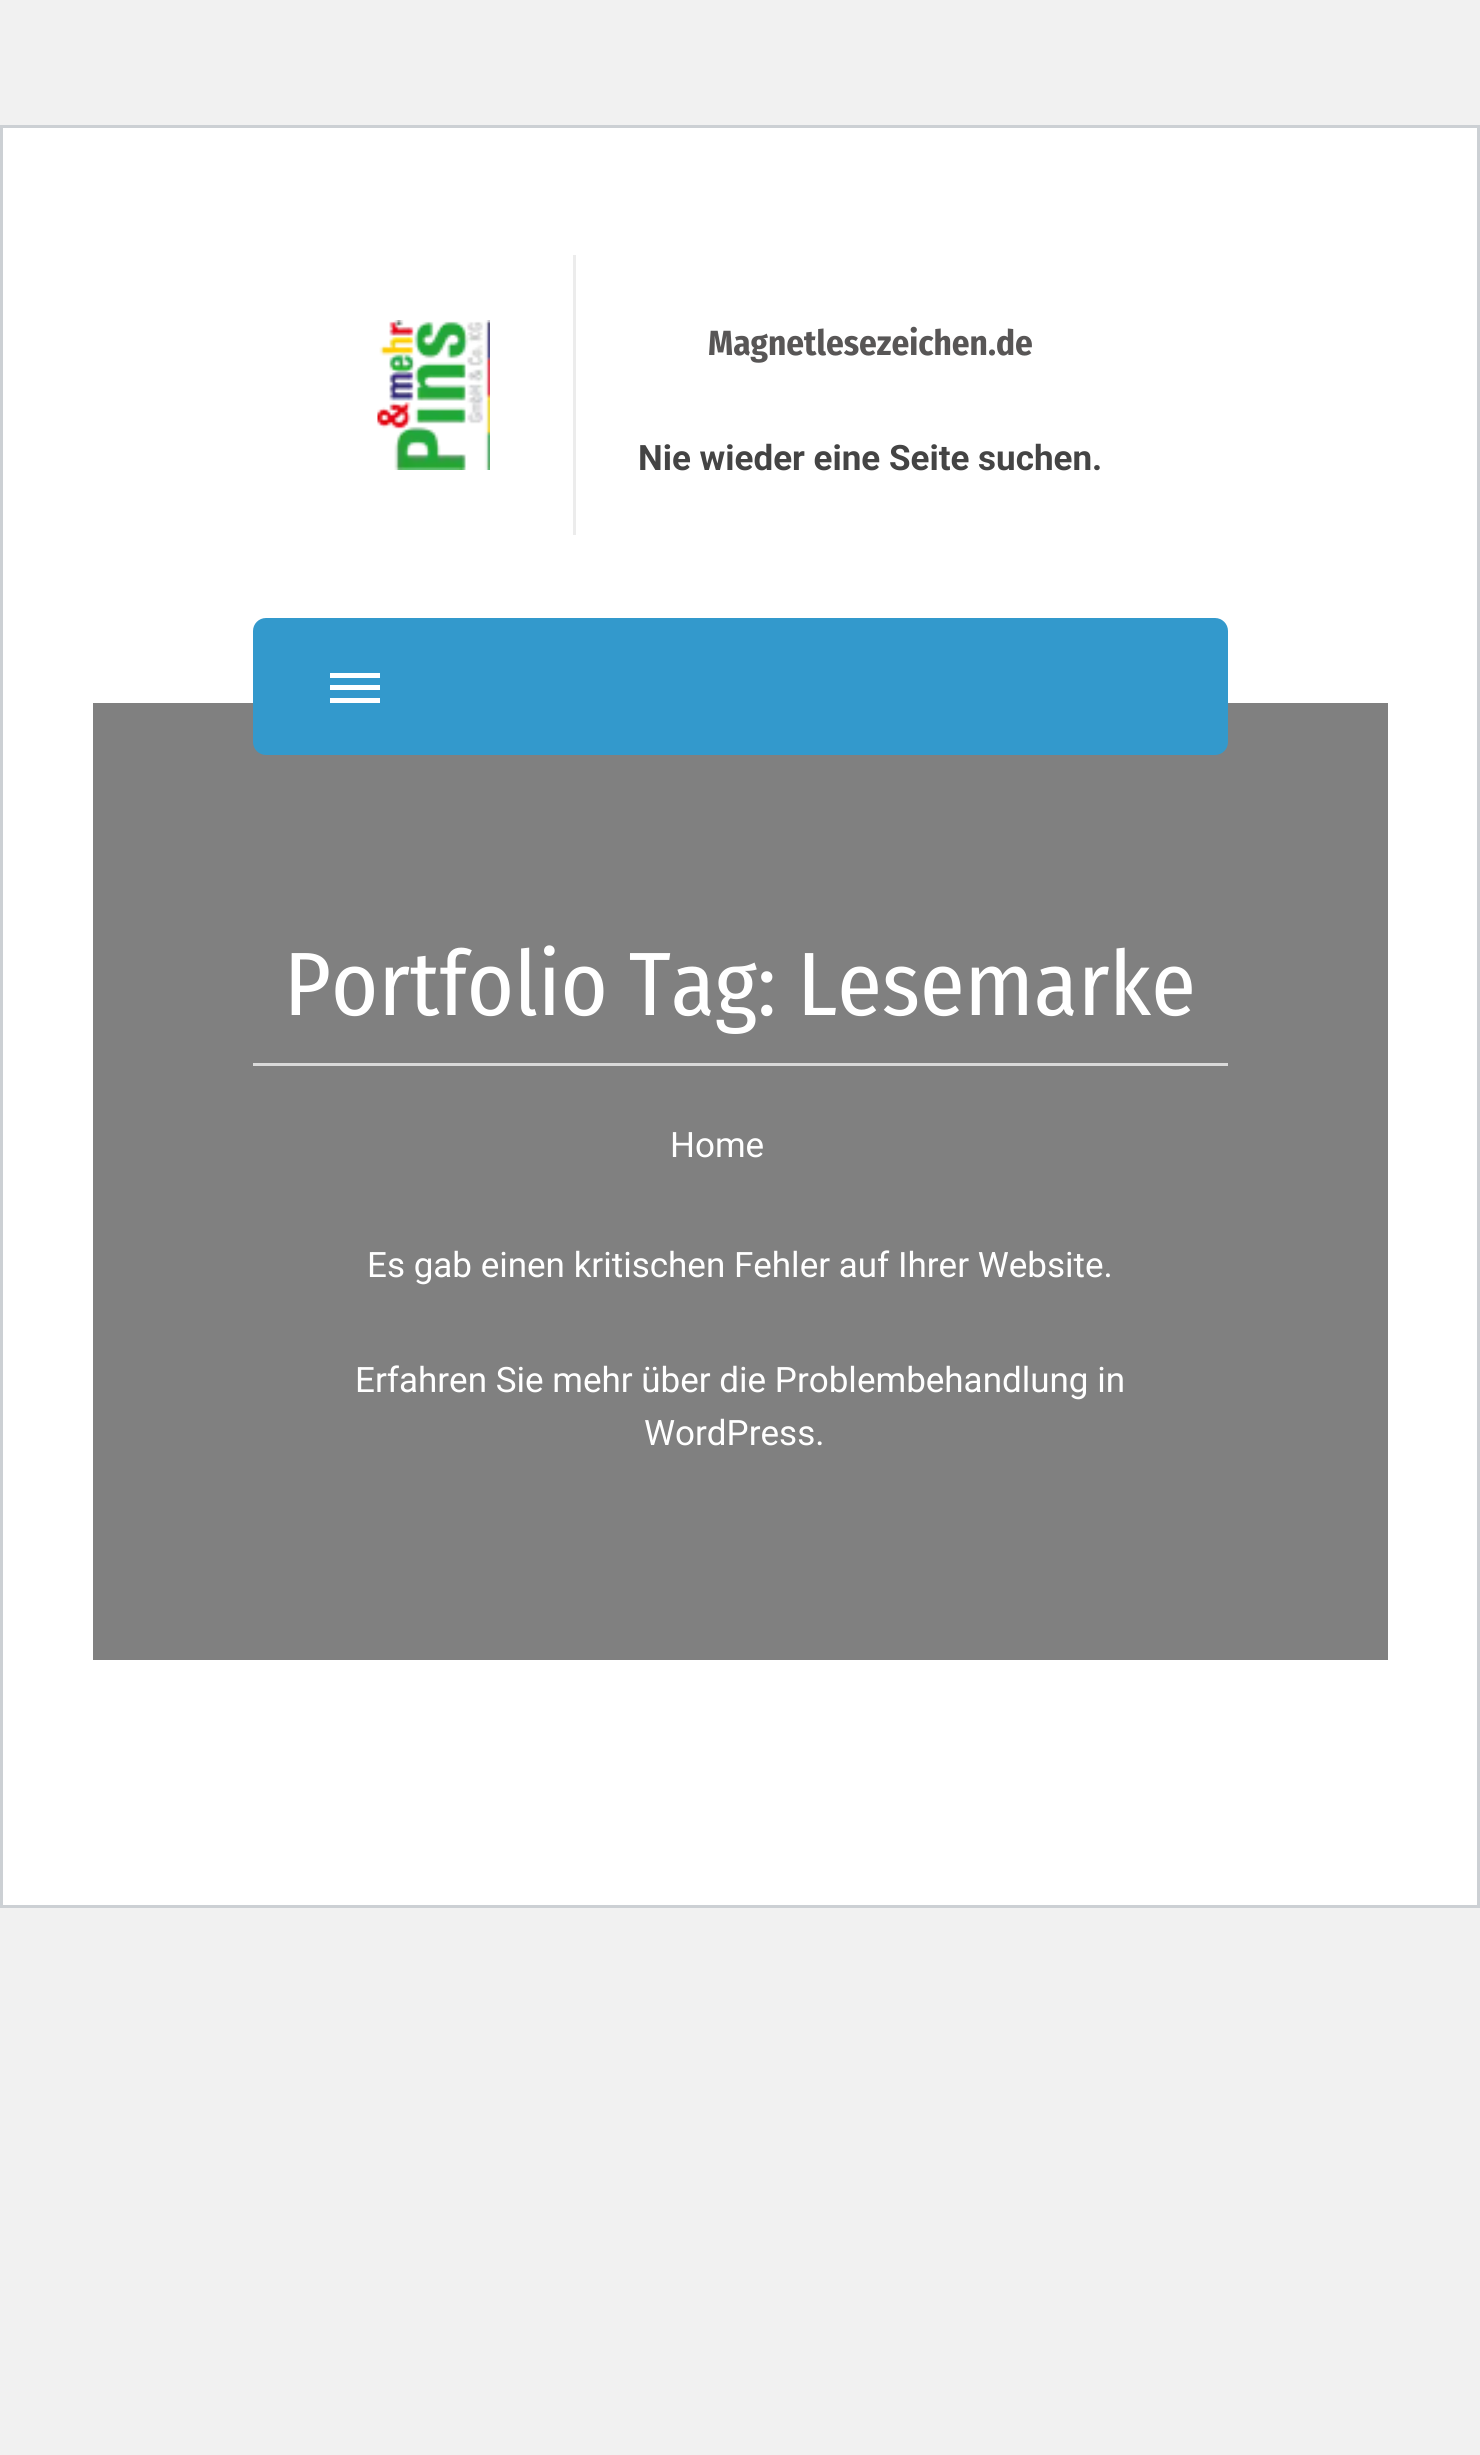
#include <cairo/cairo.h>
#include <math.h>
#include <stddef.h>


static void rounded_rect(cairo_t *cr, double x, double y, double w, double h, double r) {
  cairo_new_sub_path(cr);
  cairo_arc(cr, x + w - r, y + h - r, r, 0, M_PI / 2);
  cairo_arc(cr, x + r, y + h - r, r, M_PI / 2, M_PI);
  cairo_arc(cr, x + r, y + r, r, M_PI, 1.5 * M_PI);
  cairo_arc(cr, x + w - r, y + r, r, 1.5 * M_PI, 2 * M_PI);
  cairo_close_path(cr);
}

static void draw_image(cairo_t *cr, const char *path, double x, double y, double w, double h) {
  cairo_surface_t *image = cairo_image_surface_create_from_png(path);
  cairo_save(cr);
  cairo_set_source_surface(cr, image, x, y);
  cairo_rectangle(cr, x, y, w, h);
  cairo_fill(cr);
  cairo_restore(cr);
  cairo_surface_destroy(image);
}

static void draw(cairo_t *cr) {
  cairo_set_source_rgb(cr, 241 / 255.0, 241 / 255.0, 241 / 255.0);
  cairo_paint(cr);
  cairo_set_source_rgb(cr, 1, 1, 1);
  cairo_rectangle(cr, 1.5, 126.5, 1477, 1780);
  cairo_fill_preserve(cr);
  cairo_set_source_rgb(cr, 204 / 255.0, 208 / 255.0, 212 / 255.0);
  cairo_set_line_width(cr, 3);
  cairo_stroke(cr);
  draw_image(cr, "images/1.png", 377, 320, 113, 150);
  cairo_set_source_rgb(cr, 236 / 255.0, 236 / 255.0, 236 / 255.0);
  cairo_rectangle(cr, 573, 255, 3, 280);
  cairo_fill(cr);
  cairo_set_source_rgb(cr, 128 / 255.0, 128 / 255.0, 128 / 255.0);
  cairo_rectangle(cr, 93, 703, 1295, 957);
  cairo_fill(cr);
  cairo_set_source_rgb(cr, 51 / 255.0, 153 / 255.0, 204 / 255.0);
  rounded_rect(cr, 253, 618, 975, 137, 13);
  cairo_fill(cr);
  cairo_set_source_rgb(cr, 1, 1, 1);
  cairo_rectangle(cr, 330, 673, 50, 5);
  cairo_fill(cr);
  cairo_rectangle(cr, 330, 685, 50, 5);
  cairo_fill(cr);
  cairo_rectangle(cr, 330, 698, 50, 5);
  cairo_fill(cr);
  cairo_set_source_rgb(cr, 218 / 255.0, 218 / 255.0, 218 / 255.0);
  cairo_rectangle(cr, 253, 1063, 975, 3);
  cairo_fill(cr);
  cairo_select_font_face(cr, "Fira Sans Condensed", CAIRO_FONT_SLANT_NORMAL, CAIRO_FONT_WEIGHT_BOLD);
  cairo_set_font_size(cr, 35);
  cairo_set_source_rgb(cr, 88 / 255.0, 86 / 255.0, 86 / 255.0);
  cairo_move_to(cr, 708, 355);
  cairo_show_text(cr, "Magnetlesezeichen.de");
  cairo_select_font_face(cr, "Roboto", CAIRO_FONT_SLANT_NORMAL, CAIRO_FONT_WEIGHT_BOLD);
  cairo_set_source_rgb(cr, 68 / 255.0, 68 / 255.0, 68 / 255.0);
  cairo_move_to(cr, 638, 470);
  cairo_show_text(cr, "Nie wieder eine Seite suchen.");
  cairo_select_font_face(cr, "Fira Sans Condensed", CAIRO_FONT_SLANT_NORMAL, CAIRO_FONT_WEIGHT_NORMAL);
  cairo_set_font_size(cr, 90);
  cairo_set_source_rgb(cr, 1, 1, 1);
  cairo_move_to(cr, 284, 1015);
  cairo_show_text(cr, "Portfolio Tag: Lesemarke");
  cairo_select_font_face(cr, "Roboto", CAIRO_FONT_SLANT_NORMAL, CAIRO_FONT_WEIGHT_NORMAL);
  cairo_set_font_size(cr, 35);
  cairo_move_to(cr, 670, 1157);
  cairo_show_text(cr, "Home");
  cairo_move_to(cr, 367, 1277);
  cairo_show_text(cr, "Es gab einen kritischen Fehler auf Ihrer Website.");
  cairo_move_to(cr, 355, 1392);
  cairo_show_text(cr, "Erfahren Sie mehr über die Problembehandlung in");
  cairo_move_to(cr, 644, 1445);
  cairo_show_text(cr, "WordPress.");
}

int main(void) {
  cairo_surface_t *surface = cairo_image_surface_create(CAIRO_FORMAT_RGB24, 1480, 2455);
  cairo_t *cr = cairo_create(surface);
  cairo_font_options_t *options = cairo_font_options_create();
  cairo_font_options_set_hint_metrics(options, CAIRO_HINT_METRICS_OFF);
  cairo_font_options_set_hint_style(options, CAIRO_HINT_STYLE_NONE);
  cairo_set_font_options(cr, options);
  cairo_set_miter_limit(cr, 4);
  draw(cr);
  cairo_surface_write_to_png(surface, "out.png");
  cairo_font_options_destroy(options);
  cairo_destroy(cr);
  cairo_surface_destroy(surface);
  return 0;
}
